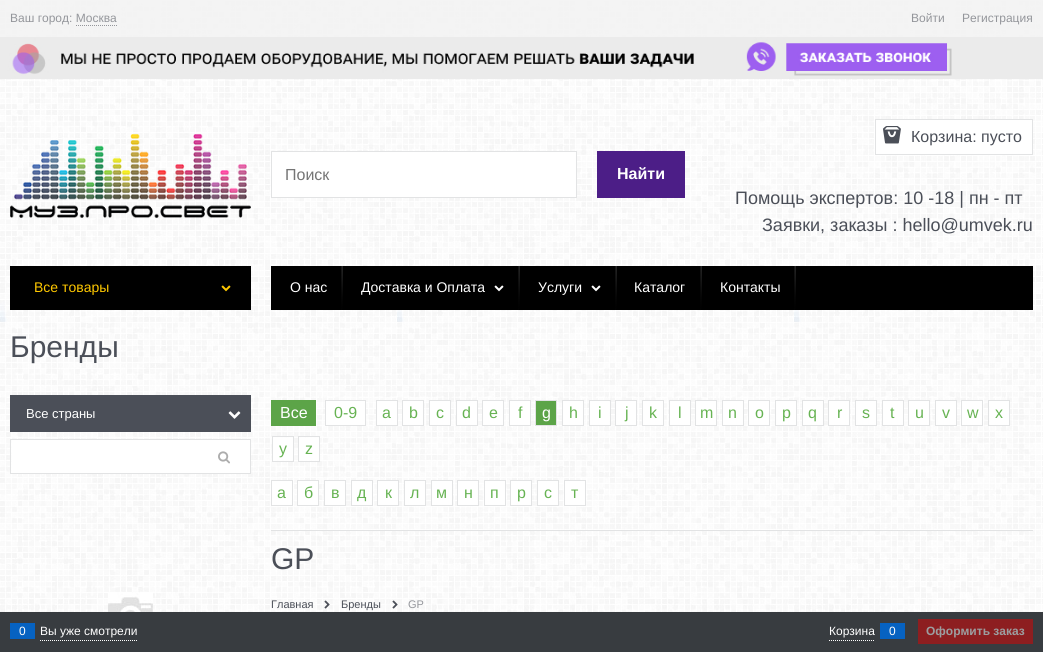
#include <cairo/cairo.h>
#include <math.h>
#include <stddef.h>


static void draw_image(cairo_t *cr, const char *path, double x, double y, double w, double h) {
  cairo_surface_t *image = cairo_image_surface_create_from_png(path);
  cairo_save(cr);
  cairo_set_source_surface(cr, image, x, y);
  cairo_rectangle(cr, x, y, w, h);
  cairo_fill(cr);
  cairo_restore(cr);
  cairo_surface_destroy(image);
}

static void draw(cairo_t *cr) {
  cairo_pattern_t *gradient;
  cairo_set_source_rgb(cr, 1, 1, 1);
  cairo_paint(cr);
  draw_image(cr, "images/1.png", 0, 0, 1043, 612);
  cairo_set_source_rgba(cr, 243 / 255.0, 243 / 255.0, 243 / 255.0, 0.9);
  cairo_rectangle(cr, 0, 0, 1043, 37);
  cairo_fill(cr);
  cairo_new_path(cr);
  cairo_move_to(cr, 76, 25.5);
  cairo_line_to(cr, 117, 25.5);
  cairo_set_source_rgb(cr, 148 / 255.0, 150 / 255.0, 155 / 255.0);
  cairo_set_line_width(cr, 1);
  cairo_set_dash(cr, (double[]){1, 1}, 2, 0);
  cairo_stroke(cr);
  draw_image(cr, "images/2.png", 0, 37, 1043, 42);
  draw_image(cr, "images/3.png", 10, 134, 241, 84);
  cairo_set_source_rgb(cr, 1, 1, 1);
  cairo_rectangle(cr, 271.5, 151.5, 305, 46);
  cairo_fill_preserve(cr);
  cairo_set_source_rgb(cr, 226 / 255.0, 227 / 255.0, 228 / 255.0);
  cairo_set_dash(cr, NULL, 0, 0);
  cairo_stroke(cr);
  cairo_set_source_rgb(cr, 76 / 255.0, 30 / 255.0, 135 / 255.0);
  cairo_rectangle(cr, 597, 151, 88, 47);
  cairo_fill(cr);
  cairo_set_source_rgb(cr, 1, 1, 1);
  cairo_rectangle(cr, 875.5, 119.5, 157, 35);
  cairo_fill_preserve(cr);
  cairo_set_source_rgb(cr, 226 / 255.0, 227 / 255.0, 228 / 255.0);
  cairo_stroke(cr);
  draw_image(cr, "images/4.png", 883, 126, 18, 18);
  cairo_set_source_rgb(cr, 0, 0, 0);
  cairo_rectangle(cr, 10, 266, 241, 44);
  cairo_fill(cr);
  draw_image(cr, "images/5.png", 221, 285, 10, 7);
  cairo_rectangle(cr, 271, 266, 762, 44);
  cairo_fill(cr);
  gradient = cairo_pattern_create_linear(343, 266, 343, 310);
  cairo_pattern_add_color_stop_rgba(gradient, 0, 36 / 255.0, 36 / 255.0, 36 / 255.0, 1);
  cairo_pattern_add_color_stop_rgba(gradient, 0.72, 5 / 255.0, 5 / 255.0, 5 / 255.0, 1);
  cairo_pattern_add_color_stop_rgba(gradient, 1, 0, 0, 0, 1);
  cairo_set_source(cr, gradient);
  cairo_pattern_destroy(gradient);
  cairo_rectangle(cr, 342, 266, 1, 44);
  cairo_fill(cr);
  gradient = cairo_pattern_create_linear(342, 266, 342, 310);
  cairo_pattern_add_color_stop_rgba(gradient, 0, 22 / 255.0, 22 / 255.0, 22 / 255.0, 1);
  cairo_pattern_add_color_stop_rgba(gradient, 0.17, 19 / 255.0, 19 / 255.0, 19 / 255.0, 1);
  cairo_pattern_add_color_stop_rgba(gradient, 0.61, 7 / 255.0, 7 / 255.0, 7 / 255.0, 1);
  cairo_pattern_add_color_stop_rgba(gradient, 0.96, 1 / 255.0, 1 / 255.0, 1 / 255.0, 1);
  cairo_pattern_add_color_stop_rgba(gradient, 0.98, 3 / 255.0, 3 / 255.0, 3 / 255.0, 1);
  cairo_pattern_add_color_stop_rgba(gradient, 1, 0, 0, 0, 1);
  cairo_set_source(cr, gradient);
  cairo_pattern_destroy(gradient);
  cairo_rectangle(cr, 341, 266, 1, 44);
  cairo_fill(cr);
  draw_image(cr, "images/6.png", 494, 285, 10, 7);
  gradient = cairo_pattern_create_linear(520, 266, 520, 310);
  cairo_pattern_add_color_stop_rgba(gradient, 0, 36 / 255.0, 36 / 255.0, 36 / 255.0, 1);
  cairo_pattern_add_color_stop_rgba(gradient, 0.72, 5 / 255.0, 5 / 255.0, 5 / 255.0, 1);
  cairo_pattern_add_color_stop_rgba(gradient, 1, 0, 0, 0, 1);
  cairo_set_source(cr, gradient);
  cairo_pattern_destroy(gradient);
  cairo_rectangle(cr, 519, 266, 1, 44);
  cairo_fill(cr);
  gradient = cairo_pattern_create_linear(519, 266, 519, 310);
  cairo_pattern_add_color_stop_rgba(gradient, 0, 22 / 255.0, 22 / 255.0, 22 / 255.0, 1);
  cairo_pattern_add_color_stop_rgba(gradient, 0.17, 19 / 255.0, 19 / 255.0, 19 / 255.0, 1);
  cairo_pattern_add_color_stop_rgba(gradient, 0.61, 7 / 255.0, 7 / 255.0, 7 / 255.0, 1);
  cairo_pattern_add_color_stop_rgba(gradient, 0.96, 1 / 255.0, 1 / 255.0, 1 / 255.0, 1);
  cairo_pattern_add_color_stop_rgba(gradient, 0.98, 3 / 255.0, 3 / 255.0, 3 / 255.0, 1);
  cairo_pattern_add_color_stop_rgba(gradient, 1, 0, 0, 0, 1);
  cairo_set_source(cr, gradient);
  cairo_pattern_destroy(gradient);
  cairo_rectangle(cr, 518, 266, 1, 44);
  cairo_fill(cr);
  draw_image(cr, "images/6.png", 591, 285, 10, 7);
  gradient = cairo_pattern_create_linear(617, 266, 617, 310);
  cairo_pattern_add_color_stop_rgba(gradient, 0, 36 / 255.0, 36 / 255.0, 36 / 255.0, 1);
  cairo_pattern_add_color_stop_rgba(gradient, 0.72, 5 / 255.0, 5 / 255.0, 5 / 255.0, 1);
  cairo_pattern_add_color_stop_rgba(gradient, 1, 0, 0, 0, 1);
  cairo_set_source(cr, gradient);
  cairo_pattern_destroy(gradient);
  cairo_rectangle(cr, 616, 266, 1, 44);
  cairo_fill(cr);
  gradient = cairo_pattern_create_linear(616, 266, 616, 310);
  cairo_pattern_add_color_stop_rgba(gradient, 0, 22 / 255.0, 22 / 255.0, 22 / 255.0, 1);
  cairo_pattern_add_color_stop_rgba(gradient, 0.17, 19 / 255.0, 19 / 255.0, 19 / 255.0, 1);
  cairo_pattern_add_color_stop_rgba(gradient, 0.61, 7 / 255.0, 7 / 255.0, 7 / 255.0, 1);
  cairo_pattern_add_color_stop_rgba(gradient, 0.96, 1 / 255.0, 1 / 255.0, 1 / 255.0, 1);
  cairo_pattern_add_color_stop_rgba(gradient, 0.98, 3 / 255.0, 3 / 255.0, 3 / 255.0, 1);
  cairo_pattern_add_color_stop_rgba(gradient, 1, 0, 0, 0, 1);
  cairo_set_source(cr, gradient);
  cairo_pattern_destroy(gradient);
  cairo_rectangle(cr, 615, 266, 1, 44);
  cairo_fill(cr);
  gradient = cairo_pattern_create_linear(702, 266, 702, 310);
  cairo_pattern_add_color_stop_rgba(gradient, 0, 36 / 255.0, 36 / 255.0, 36 / 255.0, 1);
  cairo_pattern_add_color_stop_rgba(gradient, 0.72, 5 / 255.0, 5 / 255.0, 5 / 255.0, 1);
  cairo_pattern_add_color_stop_rgba(gradient, 1, 0, 0, 0, 1);
  cairo_set_source(cr, gradient);
  cairo_pattern_destroy(gradient);
  cairo_rectangle(cr, 701, 266, 1, 44);
  cairo_fill(cr);
  gradient = cairo_pattern_create_linear(701, 266, 701, 310);
  cairo_pattern_add_color_stop_rgba(gradient, 0, 22 / 255.0, 22 / 255.0, 22 / 255.0, 1);
  cairo_pattern_add_color_stop_rgba(gradient, 0.17, 19 / 255.0, 19 / 255.0, 19 / 255.0, 1);
  cairo_pattern_add_color_stop_rgba(gradient, 0.61, 7 / 255.0, 7 / 255.0, 7 / 255.0, 1);
  cairo_pattern_add_color_stop_rgba(gradient, 0.96, 1 / 255.0, 1 / 255.0, 1 / 255.0, 1);
  cairo_pattern_add_color_stop_rgba(gradient, 0.98, 3 / 255.0, 3 / 255.0, 3 / 255.0, 1);
  cairo_pattern_add_color_stop_rgba(gradient, 1, 0, 0, 0, 1);
  cairo_set_source(cr, gradient);
  cairo_pattern_destroy(gradient);
  cairo_rectangle(cr, 700, 266, 1, 44);
  cairo_fill(cr);
  gradient = cairo_pattern_create_linear(796, 266, 796, 310);
  cairo_pattern_add_color_stop_rgba(gradient, 0, 36 / 255.0, 36 / 255.0, 36 / 255.0, 1);
  cairo_pattern_add_color_stop_rgba(gradient, 0.72, 5 / 255.0, 5 / 255.0, 5 / 255.0, 1);
  cairo_pattern_add_color_stop_rgba(gradient, 1, 0, 0, 0, 1);
  cairo_set_source(cr, gradient);
  cairo_pattern_destroy(gradient);
  cairo_rectangle(cr, 795, 266, 1, 44);
  cairo_fill(cr);
  gradient = cairo_pattern_create_linear(795, 266, 795, 310);
  cairo_pattern_add_color_stop_rgba(gradient, 0, 22 / 255.0, 22 / 255.0, 22 / 255.0, 1);
  cairo_pattern_add_color_stop_rgba(gradient, 0.17, 19 / 255.0, 19 / 255.0, 19 / 255.0, 1);
  cairo_pattern_add_color_stop_rgba(gradient, 0.61, 7 / 255.0, 7 / 255.0, 7 / 255.0, 1);
  cairo_pattern_add_color_stop_rgba(gradient, 0.96, 1 / 255.0, 1 / 255.0, 1 / 255.0, 1);
  cairo_pattern_add_color_stop_rgba(gradient, 0.98, 3 / 255.0, 3 / 255.0, 3 / 255.0, 1);
  cairo_pattern_add_color_stop_rgba(gradient, 1, 0, 0, 0, 1);
  cairo_set_source(cr, gradient);
  cairo_pattern_destroy(gradient);
  cairo_rectangle(cr, 794, 266, 1, 44);
  cairo_fill(cr);
  cairo_set_source_rgb(cr, 75 / 255.0, 79 / 255.0, 88 / 255.0);
  cairo_rectangle(cr, 10, 395, 241, 37);
  cairo_fill(cr);
  draw_image(cr, "images/7.png", 228, 411, 13, 8);
  cairo_set_source_rgb(cr, 1, 1, 1);
  cairo_rectangle(cr, 12, 440, 238, 33);
  cairo_fill(cr);
  cairo_rectangle(cr, 10.5, 439.5, 240, 34);
  cairo_set_source_rgb(cr, 226 / 255.0, 227 / 255.0, 228 / 255.0);
  cairo_stroke(cr);
  draw_image(cr, "images/8.png", 218, 451, 12, 13);
  cairo_set_source_rgb(cr, 92 / 255.0, 164 / 255.0, 72 / 255.0);
  cairo_rectangle(cr, 271, 400, 45, 26);
  cairo_fill(cr);
  cairo_set_source_rgb(cr, 1, 1, 1);
  cairo_rectangle(cr, 325.5, 400.5, 40, 25);
  cairo_fill_preserve(cr);
  cairo_set_source_rgb(cr, 226 / 255.0, 227 / 255.0, 228 / 255.0);
  cairo_stroke(cr);
  cairo_set_source_rgb(cr, 1, 1, 1);
  cairo_rectangle(cr, 376.5, 400.5, 21, 25);
  cairo_fill_preserve(cr);
  cairo_set_source_rgb(cr, 226 / 255.0, 227 / 255.0, 228 / 255.0);
  cairo_stroke(cr);
  cairo_set_source_rgb(cr, 1, 1, 1);
  cairo_rectangle(cr, 402.5, 400.5, 21, 25);
  cairo_fill_preserve(cr);
  cairo_set_source_rgb(cr, 226 / 255.0, 227 / 255.0, 228 / 255.0);
  cairo_stroke(cr);
  cairo_set_source_rgb(cr, 1, 1, 1);
  cairo_rectangle(cr, 429.5, 400.5, 21, 25);
  cairo_fill_preserve(cr);
  cairo_set_source_rgb(cr, 226 / 255.0, 227 / 255.0, 228 / 255.0);
  cairo_stroke(cr);
  cairo_set_source_rgb(cr, 1, 1, 1);
  cairo_rectangle(cr, 456.5, 400.5, 21, 25);
  cairo_fill_preserve(cr);
  cairo_set_source_rgb(cr, 226 / 255.0, 227 / 255.0, 228 / 255.0);
  cairo_stroke(cr);
  cairo_set_source_rgb(cr, 1, 1, 1);
  cairo_rectangle(cr, 482.5, 400.5, 21, 25);
  cairo_fill_preserve(cr);
  cairo_set_source_rgb(cr, 226 / 255.0, 227 / 255.0, 228 / 255.0);
  cairo_stroke(cr);
  cairo_set_source_rgb(cr, 1, 1, 1);
  cairo_rectangle(cr, 509.5, 400.5, 21, 25);
  cairo_fill_preserve(cr);
  cairo_set_source_rgb(cr, 226 / 255.0, 227 / 255.0, 228 / 255.0);
  cairo_stroke(cr);
  cairo_set_source_rgb(cr, 92 / 255.0, 164 / 255.0, 72 / 255.0);
  cairo_rectangle(cr, 535.5, 400.5, 21, 25);
  cairo_fill_preserve(cr);
  cairo_set_source_rgb(cr, 226 / 255.0, 227 / 255.0, 228 / 255.0);
  cairo_stroke(cr);
  cairo_set_source_rgb(cr, 1, 1, 1);
  cairo_rectangle(cr, 562.5, 400.5, 21, 25);
  cairo_fill_preserve(cr);
  cairo_set_source_rgb(cr, 226 / 255.0, 227 / 255.0, 228 / 255.0);
  cairo_stroke(cr);
  cairo_set_source_rgb(cr, 1, 1, 1);
  cairo_rectangle(cr, 590, 401, 19, 24);
  cairo_fill(cr);
  cairo_rectangle(cr, 589.5, 400.5, 21, 25);
  cairo_set_source_rgb(cr, 226 / 255.0, 227 / 255.0, 228 / 255.0);
  cairo_stroke(cr);
  cairo_set_source_rgb(cr, 1, 1, 1);
  cairo_rectangle(cr, 615.5, 400.5, 21, 25);
  cairo_fill_preserve(cr);
  cairo_set_source_rgb(cr, 226 / 255.0, 227 / 255.0, 228 / 255.0);
  cairo_stroke(cr);
  cairo_set_source_rgb(cr, 1, 1, 1);
  cairo_rectangle(cr, 642.5, 400.5, 21, 25);
  cairo_fill_preserve(cr);
  cairo_set_source_rgb(cr, 226 / 255.0, 227 / 255.0, 228 / 255.0);
  cairo_stroke(cr);
  cairo_set_source_rgb(cr, 1, 1, 1);
  cairo_rectangle(cr, 669.5, 400.5, 21, 25);
  cairo_fill_preserve(cr);
  cairo_set_source_rgb(cr, 226 / 255.0, 227 / 255.0, 228 / 255.0);
  cairo_stroke(cr);
  cairo_set_source_rgb(cr, 1, 1, 1);
  cairo_rectangle(cr, 695.5, 400.5, 21, 25);
  cairo_fill_preserve(cr);
  cairo_set_source_rgb(cr, 226 / 255.0, 227 / 255.0, 228 / 255.0);
  cairo_stroke(cr);
  cairo_set_source_rgb(cr, 1, 1, 1);
  cairo_rectangle(cr, 722.5, 400.5, 21, 25);
  cairo_fill_preserve(cr);
  cairo_set_source_rgb(cr, 226 / 255.0, 227 / 255.0, 228 / 255.0);
  cairo_stroke(cr);
  cairo_set_source_rgb(cr, 1, 1, 1);
  cairo_rectangle(cr, 748.5, 400.5, 21, 25);
  cairo_fill_preserve(cr);
  cairo_set_source_rgb(cr, 226 / 255.0, 227 / 255.0, 228 / 255.0);
  cairo_stroke(cr);
  cairo_set_source_rgb(cr, 1, 1, 1);
  cairo_rectangle(cr, 775.5, 400.5, 21, 25);
  cairo_fill_preserve(cr);
  cairo_set_source_rgb(cr, 226 / 255.0, 227 / 255.0, 228 / 255.0);
  cairo_stroke(cr);
  cairo_set_source_rgb(cr, 1, 1, 1);
  cairo_rectangle(cr, 802.5, 400.5, 21, 25);
  cairo_fill_preserve(cr);
  cairo_set_source_rgb(cr, 226 / 255.0, 227 / 255.0, 228 / 255.0);
  cairo_stroke(cr);
  cairo_set_source_rgb(cr, 1, 1, 1);
  cairo_rectangle(cr, 828.5, 400.5, 21, 25);
  cairo_fill_preserve(cr);
  cairo_set_source_rgb(cr, 226 / 255.0, 227 / 255.0, 228 / 255.0);
  cairo_stroke(cr);
  cairo_set_source_rgb(cr, 1, 1, 1);
  cairo_rectangle(cr, 855.5, 400.5, 21, 25);
  cairo_fill_preserve(cr);
  cairo_set_source_rgb(cr, 226 / 255.0, 227 / 255.0, 228 / 255.0);
  cairo_stroke(cr);
  cairo_set_source_rgb(cr, 1, 1, 1);
  cairo_rectangle(cr, 882.5, 400.5, 21, 25);
  cairo_fill_preserve(cr);
  cairo_set_source_rgb(cr, 226 / 255.0, 227 / 255.0, 228 / 255.0);
  cairo_stroke(cr);
  cairo_set_source_rgb(cr, 1, 1, 1);
  cairo_rectangle(cr, 908.5, 400.5, 21, 25);
  cairo_fill_preserve(cr);
  cairo_set_source_rgb(cr, 226 / 255.0, 227 / 255.0, 228 / 255.0);
  cairo_stroke(cr);
  cairo_set_source_rgb(cr, 1, 1, 1);
  cairo_rectangle(cr, 935.5, 400.5, 21, 25);
  cairo_fill_preserve(cr);
  cairo_set_source_rgb(cr, 226 / 255.0, 227 / 255.0, 228 / 255.0);
  cairo_stroke(cr);
  cairo_set_source_rgb(cr, 1, 1, 1);
  cairo_rectangle(cr, 961.5, 400.5, 21, 25);
  cairo_fill_preserve(cr);
  cairo_set_source_rgb(cr, 226 / 255.0, 227 / 255.0, 228 / 255.0);
  cairo_stroke(cr);
  cairo_set_source_rgb(cr, 1, 1, 1);
  cairo_rectangle(cr, 990, 401, 19, 24);
  cairo_fill(cr);
  cairo_rectangle(cr, 988.5, 400.5, 21, 25);
  cairo_set_source_rgb(cr, 226 / 255.0, 227 / 255.0, 228 / 255.0);
  cairo_stroke(cr);
  cairo_set_source_rgb(cr, 1, 1, 1);
  cairo_rectangle(cr, 273, 438, 20, 22);
  cairo_fill(cr);
  cairo_rectangle(cr, 272.5, 436.5, 21, 25);
  cairo_set_source_rgb(cr, 226 / 255.0, 227 / 255.0, 228 / 255.0);
  cairo_stroke(cr);
  cairo_set_source_rgb(cr, 1, 1, 1);
  cairo_rectangle(cr, 299, 438, 20, 22);
  cairo_fill(cr);
  cairo_rectangle(cr, 298.5, 436.5, 21, 25);
  cairo_set_source_rgb(cr, 226 / 255.0, 227 / 255.0, 228 / 255.0);
  cairo_stroke(cr);
  cairo_set_source_rgb(cr, 1, 1, 1);
  cairo_rectangle(cr, 271.5, 480.5, 21, 25);
  cairo_fill_preserve(cr);
  cairo_set_source_rgb(cr, 226 / 255.0, 227 / 255.0, 228 / 255.0);
  cairo_stroke(cr);
  cairo_set_source_rgb(cr, 1, 1, 1);
  cairo_rectangle(cr, 297.5, 480.5, 21, 25);
  cairo_fill_preserve(cr);
  cairo_set_source_rgb(cr, 226 / 255.0, 227 / 255.0, 228 / 255.0);
  cairo_stroke(cr);
  cairo_set_source_rgb(cr, 1, 1, 1);
  cairo_rectangle(cr, 324.5, 480.5, 21, 25);
  cairo_fill_preserve(cr);
  cairo_set_source_rgb(cr, 226 / 255.0, 227 / 255.0, 228 / 255.0);
  cairo_stroke(cr);
  cairo_set_source_rgb(cr, 1, 1, 1);
  cairo_rectangle(cr, 351.5, 480.5, 21, 25);
  cairo_fill_preserve(cr);
  cairo_set_source_rgb(cr, 226 / 255.0, 227 / 255.0, 228 / 255.0);
  cairo_stroke(cr);
  cairo_set_source_rgb(cr, 1, 1, 1);
  cairo_rectangle(cr, 377.5, 480.5, 21, 25);
  cairo_fill_preserve(cr);
  cairo_set_source_rgb(cr, 226 / 255.0, 227 / 255.0, 228 / 255.0);
  cairo_stroke(cr);
  cairo_set_source_rgb(cr, 1, 1, 1);
  cairo_rectangle(cr, 404.5, 480.5, 21, 25);
  cairo_fill_preserve(cr);
  cairo_set_source_rgb(cr, 226 / 255.0, 227 / 255.0, 228 / 255.0);
  cairo_stroke(cr);
  cairo_set_source_rgb(cr, 1, 1, 1);
  cairo_rectangle(cr, 431.5, 480.5, 21, 25);
  cairo_fill_preserve(cr);
  cairo_set_source_rgb(cr, 226 / 255.0, 227 / 255.0, 228 / 255.0);
  cairo_stroke(cr);
  cairo_set_source_rgb(cr, 1, 1, 1);
  cairo_rectangle(cr, 458, 481, 19, 24);
  cairo_fill(cr);
  cairo_rectangle(cr, 457.5, 480.5, 21, 25);
  cairo_set_source_rgb(cr, 226 / 255.0, 227 / 255.0, 228 / 255.0);
  cairo_stroke(cr);
  cairo_set_source_rgb(cr, 1, 1, 1);
  cairo_rectangle(cr, 484.5, 480.5, 21, 25);
  cairo_fill_preserve(cr);
  cairo_set_source_rgb(cr, 226 / 255.0, 227 / 255.0, 228 / 255.0);
  cairo_stroke(cr);
  cairo_set_source_rgb(cr, 1, 1, 1);
  cairo_rectangle(cr, 510.5, 480.5, 21, 25);
  cairo_fill_preserve(cr);
  cairo_set_source_rgb(cr, 226 / 255.0, 227 / 255.0, 228 / 255.0);
  cairo_stroke(cr);
  cairo_set_source_rgb(cr, 1, 1, 1);
  cairo_rectangle(cr, 537.5, 480.5, 21, 25);
  cairo_fill_preserve(cr);
  cairo_set_source_rgb(cr, 226 / 255.0, 227 / 255.0, 228 / 255.0);
  cairo_stroke(cr);
  cairo_set_source_rgb(cr, 1, 1, 1);
  cairo_rectangle(cr, 564.5, 480.5, 21, 25);
  cairo_fill_preserve(cr);
  cairo_set_source_rgb(cr, 226 / 255.0, 227 / 255.0, 228 / 255.0);
  cairo_stroke(cr);
  draw_image(cr, "images/9.png", 108, 592, 45, 20);
  cairo_rectangle(cr, 271, 530, 762, 1);
  cairo_fill(cr);
  draw_image(cr, "images/10.png", 324, 600, 6, 9);
  draw_image(cr, "images/11.png", 392, 600, 6, 9);
  cairo_set_source_rgb(cr, 56 / 255.0, 60 / 255.0, 64 / 255.0);
  cairo_rectangle(cr, 0, 612, 1043, 40);
  cairo_fill(cr);
  cairo_new_path(cr);
  cairo_move_to(cr, 40, 640.5);
  cairo_line_to(cr, 137, 640.5);
  cairo_set_source_rgb(cr, 1, 1, 1);
  cairo_set_dash(cr, (double[]){1, 1}, 2, 0);
  cairo_stroke(cr);
  cairo_set_source_rgb(cr, 6 / 255.0, 98 / 255.0, 193 / 255.0);
  cairo_rectangle(cr, 10, 623, 25, 16);
  cairo_fill(cr);
  cairo_new_path(cr);
  cairo_move_to(cr, 829, 640.5);
  cairo_line_to(cr, 875, 640.5);
  cairo_set_source_rgb(cr, 1, 1, 1);
  cairo_stroke(cr);
  cairo_set_source_rgb(cr, 6 / 255.0, 98 / 255.0, 193 / 255.0);
  cairo_rectangle(cr, 880, 623, 25, 16);
  cairo_fill(cr);
  cairo_set_source_rgb(cr, 141 / 255.0, 30 / 255.0, 32 / 255.0);
  cairo_rectangle(cr, 918, 619, 115, 25);
  cairo_fill(cr);
  cairo_select_font_face(cr, "Liberation Sans", CAIRO_FONT_SLANT_NORMAL, CAIRO_FONT_WEIGHT_NORMAL);
  cairo_set_font_size(cr, 12);
  cairo_set_source_rgb(cr, 148 / 255.0, 150 / 255.0, 155 / 255.0);
  cairo_move_to(cr, 10, 22);
  cairo_show_text(cr, "Ваш город: Москва");
  cairo_move_to(cr, 911, 22);
  cairo_show_text(cr, "Войти");
  cairo_move_to(cr, 962, 22);
  cairo_show_text(cr, "Регистрация");
  cairo_set_font_size(cr, 16);
  cairo_set_source_rgb(cr, 117 / 255.0, 117 / 255.0, 117 / 255.0);
  cairo_move_to(cr, 285, 180);
  cairo_show_text(cr, "Поиск");
  cairo_select_font_face(cr, "Liberation Sans", CAIRO_FONT_SLANT_NORMAL, CAIRO_FONT_WEIGHT_BOLD);
  cairo_set_source_rgb(cr, 1, 1, 1);
  cairo_move_to(cr, 617, 179);
  cairo_show_text(cr, "Найти");
  cairo_select_font_face(cr, "Liberation Sans", CAIRO_FONT_SLANT_NORMAL, CAIRO_FONT_WEIGHT_NORMAL);
  cairo_set_source_rgb(cr, 75 / 255.0, 79 / 255.0, 88 / 255.0);
  cairo_move_to(cr, 911, 142);
  cairo_show_text(cr, "Корзина: пусто");
  cairo_set_font_size(cr, 18);
  cairo_move_to(cr, 735, 204);
  cairo_show_text(cr, "Помощь экспертов: 10 -18 | пн - пт");
  cairo_move_to(cr, 762, 231);
  cairo_show_text(cr, "Заявки, заказы : hello@umvek.ru");
  cairo_set_font_size(cr, 14);
  cairo_set_source_rgb(cr, 1, 200 / 255.0, 0);
  cairo_move_to(cr, 34, 292);
  cairo_show_text(cr, "Все товары");
  cairo_set_source_rgb(cr, 1, 1, 1);
  cairo_move_to(cr, 290, 292);
  cairo_show_text(cr, "О нас");
  cairo_move_to(cr, 361, 292);
  cairo_show_text(cr, "Доставка и Оплата");
  cairo_move_to(cr, 538, 292);
  cairo_show_text(cr, "Услуги");
  cairo_move_to(cr, 634, 292);
  cairo_show_text(cr, "Каталог");
  cairo_move_to(cr, 720, 292);
  cairo_show_text(cr, "Контакты");
  cairo_set_font_size(cr, 30);
  cairo_set_source_rgb(cr, 75 / 255.0, 79 / 255.0, 88 / 255.0);
  cairo_move_to(cr, 10, 357);
  cairo_show_text(cr, "Бренды");
  cairo_set_font_size(cr, 13);
  cairo_set_source_rgb(cr, 1, 1, 1);
  cairo_move_to(cr, 26, 418);
  cairo_show_text(cr, "Все страны");
  cairo_set_font_size(cr, 16);
  cairo_move_to(cr, 280, 418);
  cairo_show_text(cr, "Все");
  cairo_set_source_rgb(cr, 103 / 255.0, 179 / 255.0, 83 / 255.0);
  cairo_move_to(cr, 334, 418);
  cairo_show_text(cr, "0-9");
  cairo_move_to(cr, 382, 418);
  cairo_show_text(cr, "a");
  cairo_move_to(cr, 409, 418);
  cairo_show_text(cr, "b");
  cairo_move_to(cr, 436, 418);
  cairo_show_text(cr, "c");
  cairo_move_to(cr, 462, 418);
  cairo_show_text(cr, "d");
  cairo_move_to(cr, 489, 418);
  cairo_show_text(cr, "e");
  cairo_move_to(cr, 518, 418);
  cairo_show_text(cr, "f");
  cairo_set_source_rgb(cr, 1, 1, 1);
  cairo_move_to(cr, 542, 418);
  cairo_show_text(cr, "g");
  cairo_set_source_rgb(cr, 103 / 255.0, 179 / 255.0, 83 / 255.0);
  cairo_move_to(cr, 569, 418);
  cairo_show_text(cr, "h");
  cairo_move_to(cr, 598, 418);
  cairo_show_text(cr, "i");
  cairo_move_to(cr, 625, 418);
  cairo_show_text(cr, "j");
  cairo_move_to(cr, 649, 418);
  cairo_show_text(cr, "k");
  cairo_move_to(cr, 678, 418);
  cairo_show_text(cr, "l");
  cairo_move_to(cr, 700, 418);
  cairo_show_text(cr, "m");
  cairo_move_to(cr, 728, 418);
  cairo_show_text(cr, "n");
  cairo_move_to(cr, 755, 418);
  cairo_show_text(cr, "o");
  cairo_move_to(cr, 782, 418);
  cairo_show_text(cr, "p");
  cairo_move_to(cr, 808, 418);
  cairo_show_text(cr, "q");
  cairo_move_to(cr, 837, 418);
  cairo_show_text(cr, "r");
  cairo_move_to(cr, 862, 418);
  cairo_show_text(cr, "s");
  cairo_move_to(cr, 890, 418);
  cairo_show_text(cr, "t");
  cairo_move_to(cr, 915, 418);
  cairo_show_text(cr, "u");
  cairo_move_to(cr, 942, 418);
  cairo_show_text(cr, "v");
  cairo_move_to(cr, 967, 418);
  cairo_show_text(cr, "w");
  cairo_move_to(cr, 995, 418);
  cairo_show_text(cr, "x");
  cairo_move_to(cr, 279, 454);
  cairo_show_text(cr, "y");
  cairo_move_to(cr, 305, 454);
  cairo_show_text(cr, "z");
  cairo_move_to(cr, 277, 498);
  cairo_show_text(cr, "а");
  cairo_move_to(cr, 304, 498);
  cairo_show_text(cr, "б");
  cairo_move_to(cr, 331, 498);
  cairo_show_text(cr, "в");
  cairo_move_to(cr, 357, 498);
  cairo_show_text(cr, "д");
  cairo_move_to(cr, 385, 498);
  cairo_show_text(cr, "к");
  cairo_move_to(cr, 410, 498);
  cairo_show_text(cr, "л");
  cairo_move_to(cr, 436, 498);
  cairo_show_text(cr, "м");
  cairo_move_to(cr, 464, 498);
  cairo_show_text(cr, "н");
  cairo_move_to(cr, 490, 498);
  cairo_show_text(cr, "п");
  cairo_move_to(cr, 517, 498);
  cairo_show_text(cr, "р");
  cairo_move_to(cr, 544, 498);
  cairo_show_text(cr, "с");
  cairo_move_to(cr, 571, 498);
  cairo_show_text(cr, "т");
  cairo_set_font_size(cr, 30);
  cairo_set_source_rgb(cr, 75 / 255.0, 79 / 255.0, 88 / 255.0);
  cairo_move_to(cr, 271, 569);
  cairo_show_text(cr, "GP");
  cairo_set_font_size(cr, 11);
  cairo_move_to(cr, 271, 608);
  cairo_show_text(cr, "Главная");
  cairo_move_to(cr, 341, 608);
  cairo_show_text(cr, "Бренды");
  cairo_set_source_rgb(cr, 148 / 255.0, 150 / 255.0, 155 / 255.0);
  cairo_move_to(cr, 408, 608);
  cairo_show_text(cr, "GP");
  cairo_set_font_size(cr, 12);
  cairo_set_source_rgb(cr, 1, 1, 1);
  cairo_move_to(cr, 19, 635);
  cairo_show_text(cr, "0");
  cairo_move_to(cr, 40, 635);
  cairo_show_text(cr, "Вы уже смотрели");
  cairo_move_to(cr, 829, 635);
  cairo_show_text(cr, "Корзина");
  cairo_move_to(cr, 889, 635);
  cairo_show_text(cr, "0");
  cairo_select_font_face(cr, "Liberation Sans", CAIRO_FONT_SLANT_NORMAL, CAIRO_FONT_WEIGHT_BOLD);
  cairo_set_source_rgb(cr, 156 / 255.0, 158 / 255.0, 160 / 255.0);
  cairo_move_to(cr, 926, 635);
  cairo_show_text(cr, "Оформить заказ");
}

int main(void) {
  cairo_surface_t *surface = cairo_image_surface_create(CAIRO_FORMAT_RGB24, 1043, 652);
  cairo_t *cr = cairo_create(surface);
  cairo_font_options_t *options = cairo_font_options_create();
  cairo_font_options_set_hint_metrics(options, CAIRO_HINT_METRICS_OFF);
  cairo_font_options_set_hint_style(options, CAIRO_HINT_STYLE_NONE);
  cairo_set_font_options(cr, options);
  cairo_set_miter_limit(cr, 4);
  draw(cr);
  cairo_surface_write_to_png(surface, "out.png");
  cairo_font_options_destroy(options);
  cairo_destroy(cr);
  cairo_surface_destroy(surface);
  return 0;
}
